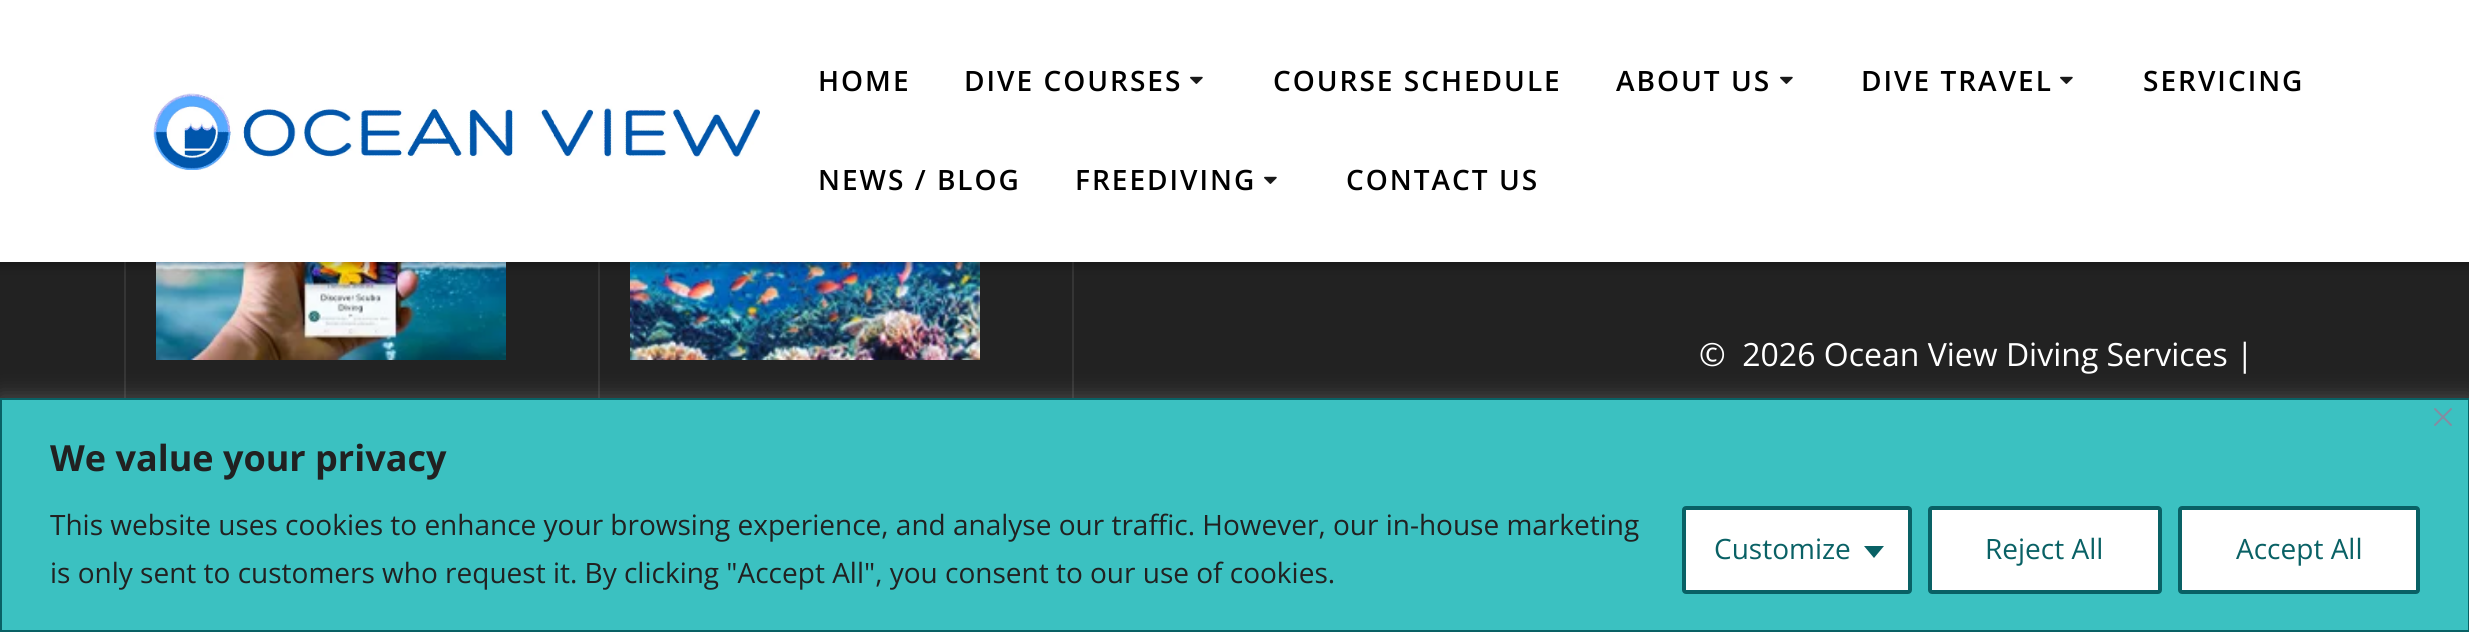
#include <cairo/cairo.h>
#include <math.h>
#include <stddef.h>


static void draw_spaced(cairo_t *cr, double x, double y, const char *s, double letter, double word) {
  cairo_move_to(cr, x, y);
  while (*s) {
    char ch[5] = {0};
    int n = 0;
    do ch[n++] = *s++; while ((*s & 0xC0) == 0x80);
    cairo_show_text(cr, ch);
    cairo_rel_move_to(cr, letter + word * (*ch == ' '), 0);
  }
}

static void rounded_rect(cairo_t *cr, double x, double y, double w, double h, double r) {
  cairo_new_sub_path(cr);
  cairo_arc(cr, x + w - r, y + h - r, r, 0, M_PI / 2);
  cairo_arc(cr, x + r, y + h - r, r, M_PI / 2, M_PI);
  cairo_arc(cr, x + r, y + r, r, M_PI, 1.5 * M_PI);
  cairo_arc(cr, x + w - r, y + r, r, 1.5 * M_PI, 2 * M_PI);
  cairo_close_path(cr);
}

static void draw_shadow(cairo_t *cr, double x, double y, double w, double h, double r, double blur, double alpha) {
  cairo_push_group_with_content(cr, CAIRO_CONTENT_ALPHA);
  cairo_set_operator(cr, CAIRO_OPERATOR_SOURCE);
  for (int i = 15; i >= -15 && fmin(w, h) + blur * i / 3 > 0; i -= 2) {
    double e = blur * i / 6;
    cairo_set_source_rgba(cr, 0, 0, 0, alpha * erfc((i - 1) / 8.5) / 2);
    rounded_rect(cr, x - e, y - e, w + 2 * e, h + 2 * e, fmax(0, fmin(r + e + blur * .6, fmin(w, h) / 2 + e)));
    cairo_fill(cr);
  }
  cairo_pattern_t *soft = cairo_pop_group(cr);
  cairo_mask(cr, soft);
  cairo_pattern_destroy(soft);
}

static void draw_image(cairo_t *cr, const char *path, double x, double y, double w, double h) {
  cairo_surface_t *image = cairo_image_surface_create_from_png(path);
  cairo_save(cr);
  cairo_set_source_surface(cr, image, x, y);
  cairo_rectangle(cr, x, y, w, h);
  cairo_fill(cr);
  cairo_restore(cr);
  cairo_surface_destroy(image);
}

static void draw(cairo_t *cr) {
  cairo_set_source_rgb(cr, 34 / 255.0, 34 / 255.0, 34 / 255.0);
  cairo_paint(cr);
  cairo_set_source_rgb(cr, 53 / 255.0, 53 / 255.0, 53 / 255.0);
  cairo_rectangle(cr, 124, 262, 2, 136);
  cairo_fill(cr);
  draw_image(cr, "images/3.png", 156, 262, 350, 98);
  cairo_rectangle(cr, 598, 262, 2, 136);
  cairo_fill(cr);
  draw_image(cr, "images/4.png", 630, 262, 350, 98);
  cairo_rectangle(cr, 1072, 262, 2, 136);
  cairo_fill(cr);
  cairo_set_source_rgb(cr, 0, 0, 0);
  draw_shadow(cr, -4, -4, 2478, 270, 0, 5, 0.33);
  cairo_set_source_rgb(cr, 1, 1, 1);
  cairo_rectangle(cr, 0, 0, 2469, 262);
  cairo_fill(cr);
  draw_image(cr, "images/1.png", 153, 93, 607, 77);
  draw_image(cr, "images/2.png", 1190, 76, 13, 8);
  draw_image(cr, "images/2.png", 1780, 76, 13, 8);
  draw_image(cr, "images/2.png", 2060, 76, 13, 8);
  draw_image(cr, "images/2.png", 1264, 176, 13, 8);
  cairo_set_source_rgb(cr, 172 / 255.0, 171 / 255.0, 171 / 255.0);
  draw_shadow(cr, 0, 396, 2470, 234, 0, 10, 0.3);
  cairo_set_source_rgb(cr, 59 / 255.0, 193 / 255.0, 193 / 255.0);
  cairo_rectangle(cr, 1, 399, 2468, 232);
  cairo_fill_preserve(cr);
  cairo_set_source_rgb(cr, 9 / 255.0, 97 / 255.0, 101 / 255.0);
  cairo_stroke(cr);
  draw_image(cr, "images/5.png", 2434, 408, 18, 18);
  cairo_set_source_rgb(cr, 1, 1, 1);
  rounded_rect(cr, 1684, 508, 226, 84, 2);
  cairo_fill_preserve(cr);
  cairo_set_source_rgb(cr, 9 / 255.0, 97 / 255.0, 101 / 255.0);
  cairo_set_line_width(cr, 4);
  cairo_stroke(cr);
  cairo_new_path(cr);
  cairo_move_to(cr, 1864, 546);
  cairo_line_to(cr, 1884, 546);
  cairo_line_to(cr, 1874, 558);
  cairo_close_path(cr);
  cairo_fill(cr);
  cairo_set_source_rgb(cr, 1, 1, 1);
  rounded_rect(cr, 1930, 508, 230, 84, 2);
  cairo_fill_preserve(cr);
  cairo_set_source_rgb(cr, 9 / 255.0, 97 / 255.0, 101 / 255.0);
  cairo_stroke(cr);
  cairo_set_source_rgb(cr, 1, 1, 1);
  rounded_rect(cr, 2180, 508, 238, 84, 2);
  cairo_fill_preserve(cr);
  cairo_set_source_rgb(cr, 9 / 255.0, 97 / 255.0, 101 / 255.0);
  cairo_stroke(cr);
  cairo_select_font_face(cr, "Open Sans SemiBold", CAIRO_FONT_SLANT_NORMAL, CAIRO_FONT_WEIGHT_NORMAL);
  cairo_set_font_size(cr, 28);
  cairo_set_source_rgb(cr, 0, 0, 0);
  draw_spaced(cr, 818, 91, "HOME", 2, 0);
  draw_spaced(cr, 964, 91, "DIVE COURSES", 2, 0);
  draw_spaced(cr, 1273, 91, "COURSE SCHEDULE", 2, 0);
  draw_spaced(cr, 1616, 91, "ABOUT US", 2, 0);
  draw_spaced(cr, 1861, 91, "DIVE TRAVEL", 2, 0);
  draw_spaced(cr, 2143, 91, "SERVICING", 2, 0);
  draw_spaced(cr, 818, 190, "NEWS / BLOG", 2, 0);
  draw_spaced(cr, 1075, 190, "FREEDIVING", 2, 0);
  draw_spaced(cr, 1346, 190, "CONTACT US", 2, 0);
  cairo_select_font_face(cr, "Open Sans", CAIRO_FONT_SLANT_NORMAL, CAIRO_FONT_WEIGHT_NORMAL);
  cairo_set_font_size(cr, 32);
  cairo_set_source_rgb(cr, 1, 1, 1);
  cairo_move_to(cr, 1699, 366);
  cairo_show_text(cr, "©  2026 Ocean View Diving Services |");
  cairo_select_font_face(cr, "Open Sans", CAIRO_FONT_SLANT_NORMAL, CAIRO_FONT_WEIGHT_BOLD);
  cairo_set_font_size(cr, 36);
  cairo_set_source_rgb(cr, 33 / 255.0, 33 / 255.0, 33 / 255.0);
  cairo_move_to(cr, 50, 471);
  cairo_show_text(cr, "We value your privacy");
  cairo_select_font_face(cr, "Open Sans", CAIRO_FONT_SLANT_NORMAL, CAIRO_FONT_WEIGHT_NORMAL);
  cairo_set_font_size(cr, 28);
  cairo_move_to(cr, 50, 535);
  cairo_show_text(cr, "This website uses cookies to enhance your browsing experience, and analyse our traffic. However, our in-house marketing");
  cairo_move_to(cr, 50, 583);
  cairo_show_text(cr, "is only sent to customers who request it. By clicking \"Accept All\", you consent to our use of cookies.");
  cairo_set_source_rgb(cr, 9 / 255.0, 97 / 255.0, 101 / 255.0);
  cairo_move_to(cr, 1714, 559);
  cairo_show_text(cr, "Customize");
  cairo_move_to(cr, 1985, 559);
  cairo_show_text(cr, "Reject All");
  cairo_move_to(cr, 2236, 559);
  cairo_show_text(cr, "Accept All");
}

int main(void) {
  cairo_surface_t *surface = cairo_image_surface_create(CAIRO_FORMAT_RGB24, 2469, 632);
  cairo_t *cr = cairo_create(surface);
  cairo_font_options_t *options = cairo_font_options_create();
  cairo_font_options_set_hint_metrics(options, CAIRO_HINT_METRICS_OFF);
  cairo_font_options_set_hint_style(options, CAIRO_HINT_STYLE_NONE);
  cairo_set_font_options(cr, options);
  cairo_set_miter_limit(cr, 4);
  draw(cr);
  cairo_surface_write_to_png(surface, "out.png");
  cairo_font_options_destroy(options);
  cairo_destroy(cr);
  cairo_surface_destroy(surface);
  return 0;
}
